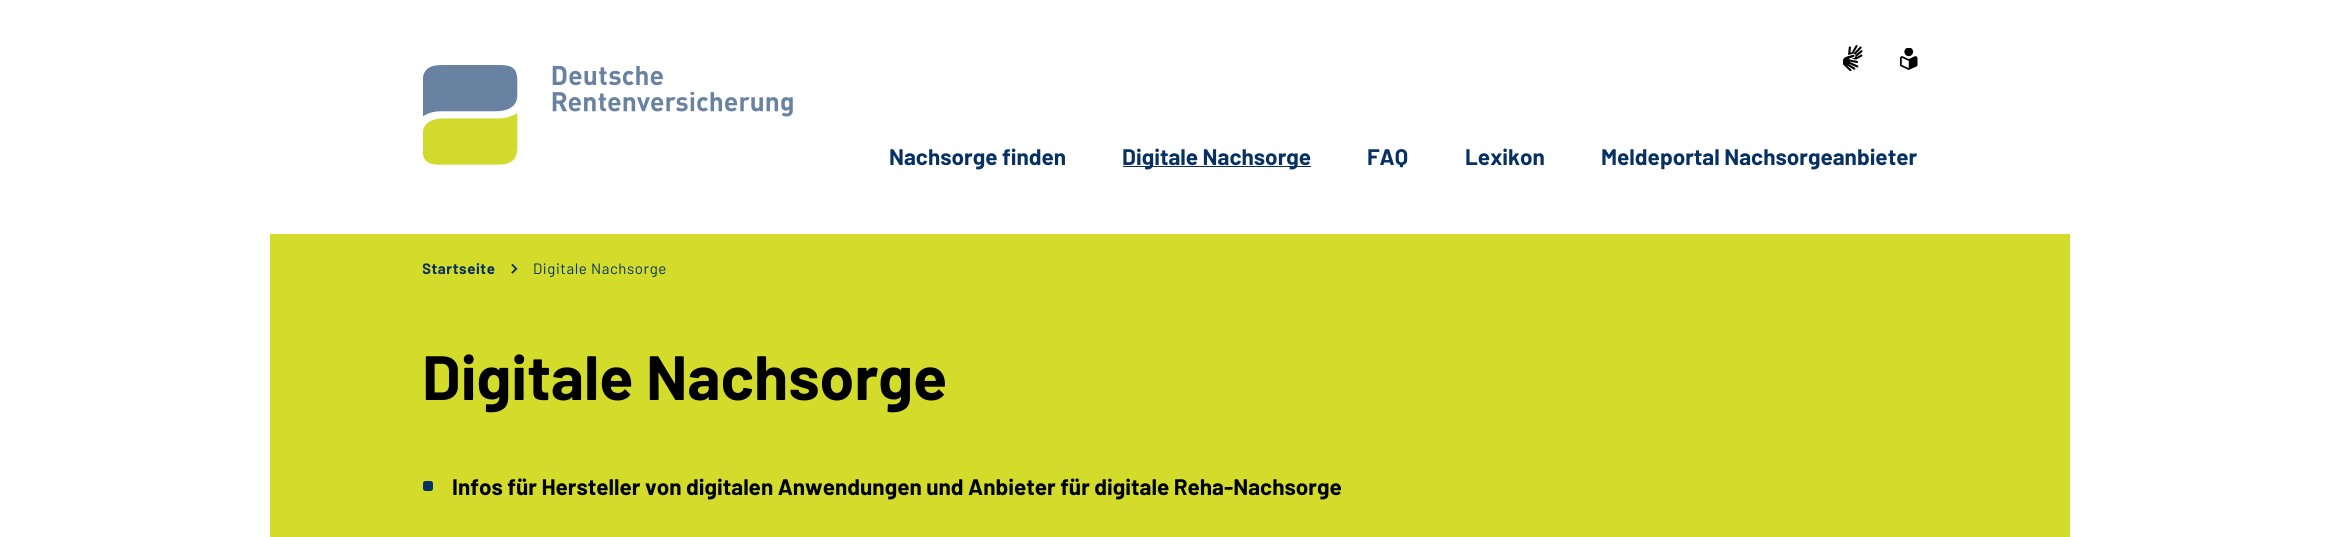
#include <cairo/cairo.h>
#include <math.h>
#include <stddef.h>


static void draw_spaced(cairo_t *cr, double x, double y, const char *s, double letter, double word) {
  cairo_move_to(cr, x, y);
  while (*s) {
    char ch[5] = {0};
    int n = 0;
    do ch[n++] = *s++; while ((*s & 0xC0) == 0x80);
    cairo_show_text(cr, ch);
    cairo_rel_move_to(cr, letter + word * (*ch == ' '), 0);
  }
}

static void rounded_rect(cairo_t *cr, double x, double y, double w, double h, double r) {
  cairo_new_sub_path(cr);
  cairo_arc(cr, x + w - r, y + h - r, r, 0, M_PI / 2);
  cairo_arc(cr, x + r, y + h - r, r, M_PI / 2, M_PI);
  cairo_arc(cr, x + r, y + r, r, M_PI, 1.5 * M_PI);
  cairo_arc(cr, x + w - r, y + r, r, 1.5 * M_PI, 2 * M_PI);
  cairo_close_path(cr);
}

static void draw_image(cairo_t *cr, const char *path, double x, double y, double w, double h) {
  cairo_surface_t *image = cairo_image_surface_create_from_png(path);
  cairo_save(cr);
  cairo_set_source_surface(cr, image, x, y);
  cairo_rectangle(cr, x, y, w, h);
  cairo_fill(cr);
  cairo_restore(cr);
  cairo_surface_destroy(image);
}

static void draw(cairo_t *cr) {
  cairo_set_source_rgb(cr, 1, 1, 1);
  cairo_paint(cr);
  draw_image(cr, "images/1.png", 1843, 45, 20, 26);
  draw_image(cr, "images/2.png", 1900, 48, 18, 22);
  draw_image(cr, "images/3.png", 423, 65, 370, 100);
  cairo_set_source_rgb(cr, 8 / 255.0, 49 / 255.0, 99 / 255.0);
  cairo_rectangle(cr, 1123, 166, 188, 1);
  cairo_fill(cr);
  cairo_set_source_rgb(cr, 211 / 255.0, 219 / 255.0, 43 / 255.0);
  cairo_rectangle(cr, 270, 234, 1800, 303);
  cairo_fill(cr);
  draw_image(cr, "images/4.png", 511, 264, 7, 10);
  cairo_set_source_rgb(cr, 8 / 255.0, 49 / 255.0, 99 / 255.0);
  rounded_rect(cr, 423, 481, 10, 10, 2.5);
  cairo_fill(cr);
  cairo_select_font_face(cr, "Barlow", CAIRO_FONT_SLANT_NORMAL, CAIRO_FONT_WEIGHT_BOLD);
  cairo_set_font_size(cr, 22.5);
  cairo_move_to(cr, 889, 165);
  cairo_show_text(cr, "Nachsorge finden");
  cairo_move_to(cr, 1122, 165);
  cairo_show_text(cr, "Digitale Nachsorge");
  cairo_move_to(cr, 1367, 165);
  cairo_show_text(cr, "FAQ");
  cairo_move_to(cr, 1465, 165);
  cairo_show_text(cr, "Lexikon");
  cairo_move_to(cr, 1601, 165);
  cairo_show_text(cr, "Meldeportal Nachsorgeanbieter");
  cairo_save(cr);
  cairo_rectangle(cr, 423, 259, 1495, 20);
  cairo_clip(cr);
  cairo_set_font_size(cr, 15);
  draw_spaced(cr, 422, 274, "Startseite", 0.6, 0);
  cairo_restore(cr);
  cairo_select_font_face(cr, "Barlow", CAIRO_FONT_SLANT_NORMAL, CAIRO_FONT_WEIGHT_NORMAL);
  cairo_set_font_size(cr, 15);
  draw_spaced(cr, 533, 274, "Digitale Nachsorge", 0.6, 0);
  cairo_select_font_face(cr, "Barlow", CAIRO_FONT_SLANT_NORMAL, CAIRO_FONT_WEIGHT_BOLD);
  cairo_set_font_size(cr, 62.5);
  cairo_set_source_rgb(cr, 0, 0, 0);
  cairo_move_to(cr, 422, 400);
  cairo_show_text(cr, "Digitale Nachsorge");
  cairo_set_font_size(cr, 22.5);
  cairo_move_to(cr, 452, 495);
  cairo_show_text(cr, "Infos für Hersteller von digitalen Anwendungen und Anbieter für digitale Reha-Nachsorge");
}

int main(void) {
  cairo_surface_t *surface = cairo_image_surface_create(CAIRO_FORMAT_RGB24, 2338, 537);
  cairo_t *cr = cairo_create(surface);
  cairo_font_options_t *options = cairo_font_options_create();
  cairo_font_options_set_hint_metrics(options, CAIRO_HINT_METRICS_OFF);
  cairo_font_options_set_hint_style(options, CAIRO_HINT_STYLE_NONE);
  cairo_set_font_options(cr, options);
  cairo_set_miter_limit(cr, 4);
  draw(cr);
  cairo_surface_write_to_png(surface, "out.png");
  cairo_font_options_destroy(options);
  cairo_destroy(cr);
  cairo_surface_destroy(surface);
  return 0;
}
